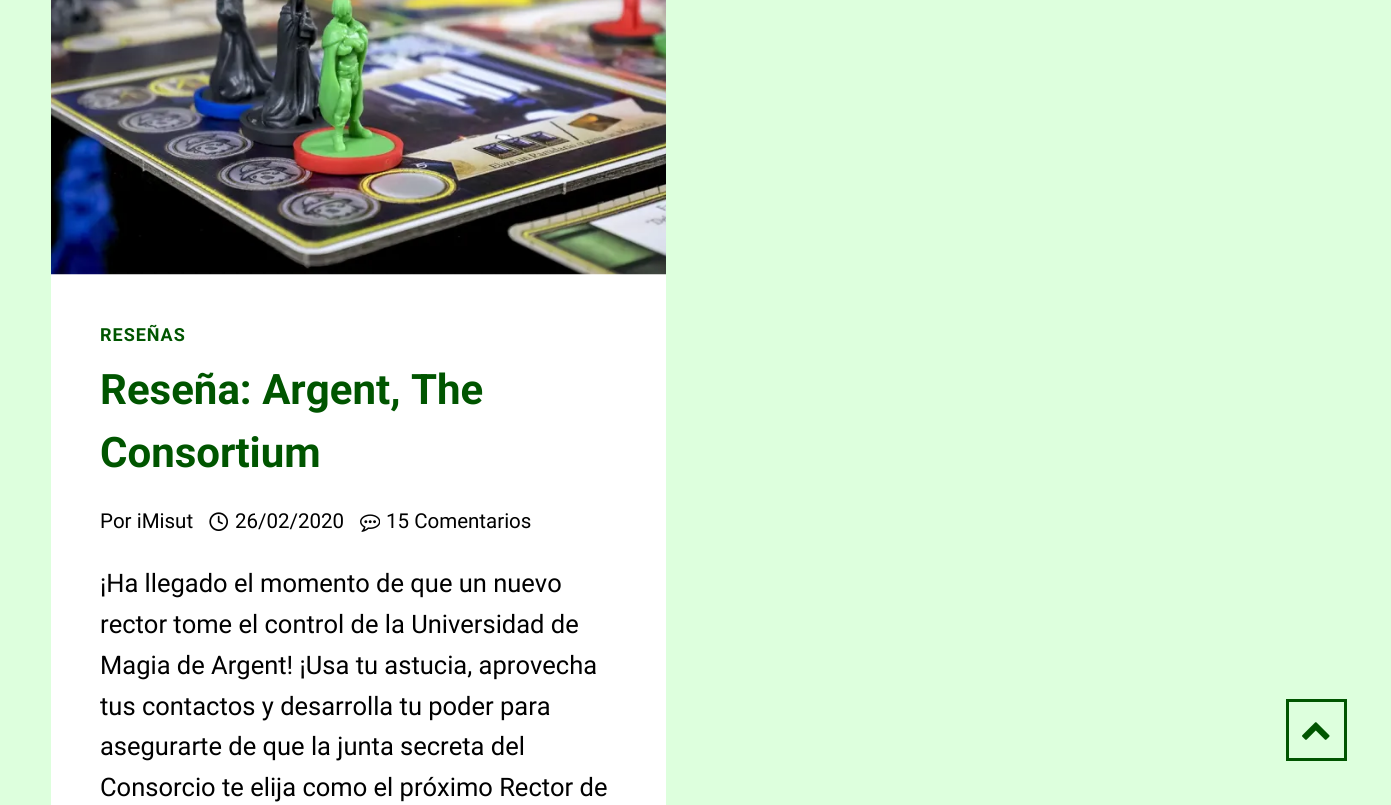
#include <cairo/cairo.h>
#include <math.h>
#include <stddef.h>


static void draw_spaced(cairo_t *cr, double x, double y, const char *s, double letter, double word) {
  cairo_move_to(cr, x, y);
  while (*s) {
    char ch[5] = {0};
    int n = 0;
    do ch[n++] = *s++; while ((*s & 0xC0) == 0x80);
    cairo_show_text(cr, ch);
    cairo_rel_move_to(cr, letter + word * (*ch == ' '), 0);
  }
}

static void draw_image(cairo_t *cr, const char *path, double x, double y, double w, double h) {
  cairo_surface_t *image = cairo_image_surface_create_from_png(path);
  cairo_save(cr);
  cairo_set_source_surface(cr, image, x, y);
  cairo_rectangle(cr, x, y, w, h);
  cairo_fill(cr);
  cairo_restore(cr);
  cairo_surface_destroy(image);
}

static void draw(cairo_t *cr) {
  cairo_set_source_rgb(cr, 221 / 255.0, 1, 221 / 255.0);
  cairo_paint(cr);
  cairo_set_source_rgb(cr, 1, 1, 1);
  cairo_rectangle(cr, 51, 274, 615, 531);
  cairo_fill(cr);
  draw_image(cr, "images/1.png", 51, 0, 615, 275);
  draw_image(cr, "images/2.png", 209, 512, 19, 19);
  draw_image(cr, "images/3.png", 360, 514, 20, 18);
  cairo_rectangle(cr, 1287.5, 700.5, 58, 59);
  cairo_set_source_rgb(cr, 0, 85 / 255.0, 0);
  cairo_set_line_width(cr, 3);
  cairo_stroke(cr);
  draw_image(cr, "images/4.png", 1302, 722, 28, 18);
  cairo_select_font_face(cr, "Roboto", CAIRO_FONT_SLANT_NORMAL, CAIRO_FONT_WEIGHT_BOLD);
  cairo_set_font_size(cr, 18);
  draw_spaced(cr, 100, 341, "RESEÑAS", 1, 0);
  cairo_set_font_size(cr, 42);
  cairo_move_to(cr, 100, 404);
  cairo_show_text(cr, "Reseña: Argent, The");
  cairo_move_to(cr, 100, 467);
  cairo_show_text(cr, "Consortium");
  cairo_select_font_face(cr, "Roboto", CAIRO_FONT_SLANT_NORMAL, CAIRO_FONT_WEIGHT_NORMAL);
  cairo_set_font_size(cr, 20.5);
  cairo_set_source_rgb(cr, 0, 0, 0);
  cairo_move_to(cr, 100, 528);
  cairo_show_text(cr, "Por iMisut");
  cairo_move_to(cr, 235, 528);
  cairo_show_text(cr, "26/02/2020");
  cairo_move_to(cr, 386, 528);
  cairo_show_text(cr, "15 Comentarios");
  cairo_set_font_size(cr, 25.5);
  cairo_move_to(cr, 100, 592);
  cairo_show_text(cr, "¡Ha llegado el momento de que un nuevo");
  cairo_move_to(cr, 100, 633);
  cairo_show_text(cr, "rector tome el control de la Universidad de");
  cairo_move_to(cr, 100, 674);
  cairo_show_text(cr, "Magia de Argent! ¡Usa tu astucia, aprovecha");
  cairo_move_to(cr, 100, 715);
  cairo_show_text(cr, "tus contactos y desarrolla tu poder para");
  cairo_move_to(cr, 100, 755);
  cairo_show_text(cr, "asegurarte de que la junta secreta del");
  cairo_move_to(cr, 100, 796);
  cairo_show_text(cr, "Consorcio te elija como el próximo Rector de");
}

int main(void) {
  cairo_surface_t *surface = cairo_image_surface_create(CAIRO_FORMAT_RGB24, 1391, 805);
  cairo_t *cr = cairo_create(surface);
  cairo_font_options_t *options = cairo_font_options_create();
  cairo_font_options_set_hint_metrics(options, CAIRO_HINT_METRICS_OFF);
  cairo_font_options_set_hint_style(options, CAIRO_HINT_STYLE_NONE);
  cairo_set_font_options(cr, options);
  cairo_set_miter_limit(cr, 4);
  draw(cr);
  cairo_surface_write_to_png(surface, "out.png");
  cairo_font_options_destroy(options);
  cairo_destroy(cr);
  cairo_surface_destroy(surface);
  return 0;
}
